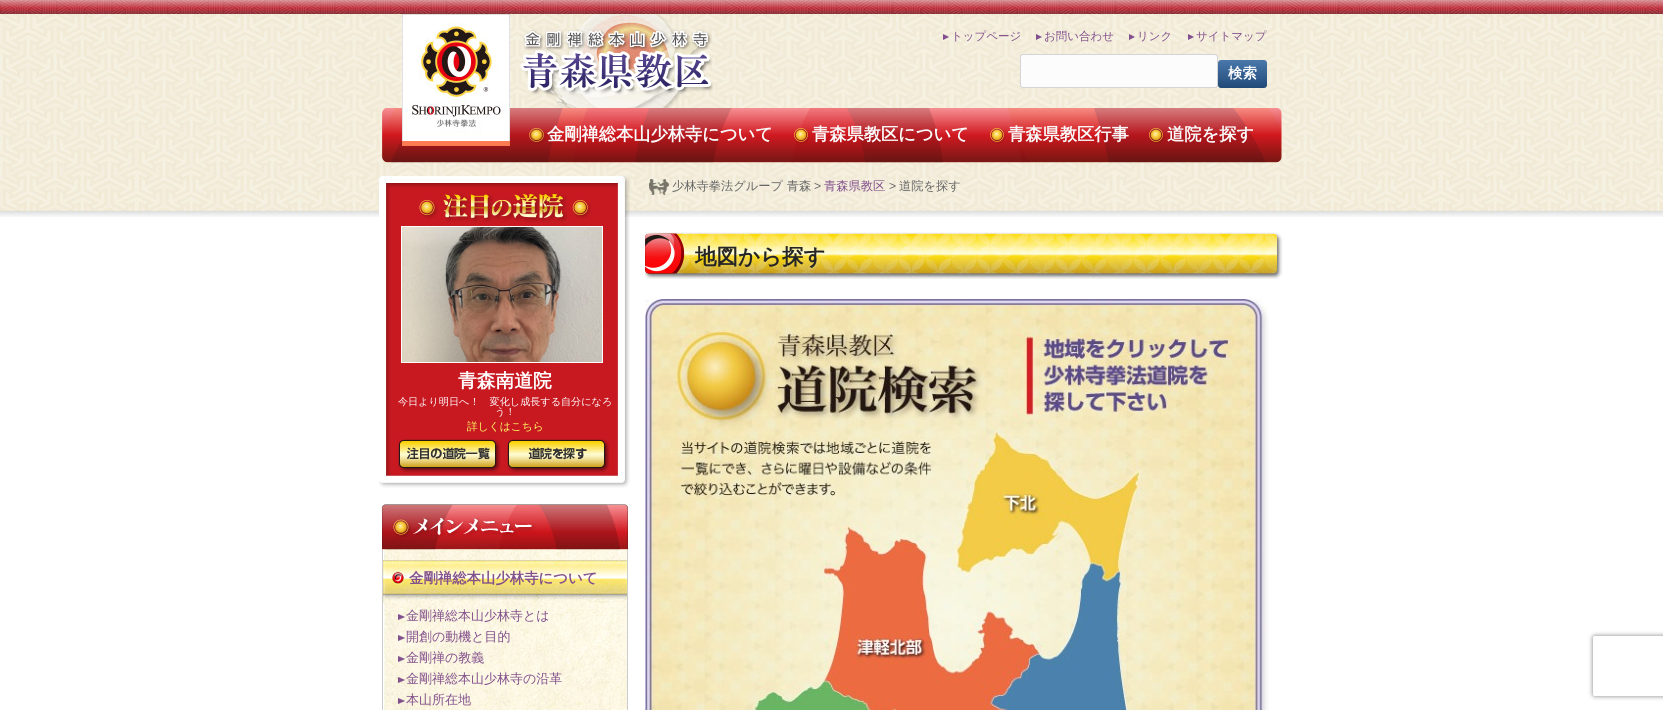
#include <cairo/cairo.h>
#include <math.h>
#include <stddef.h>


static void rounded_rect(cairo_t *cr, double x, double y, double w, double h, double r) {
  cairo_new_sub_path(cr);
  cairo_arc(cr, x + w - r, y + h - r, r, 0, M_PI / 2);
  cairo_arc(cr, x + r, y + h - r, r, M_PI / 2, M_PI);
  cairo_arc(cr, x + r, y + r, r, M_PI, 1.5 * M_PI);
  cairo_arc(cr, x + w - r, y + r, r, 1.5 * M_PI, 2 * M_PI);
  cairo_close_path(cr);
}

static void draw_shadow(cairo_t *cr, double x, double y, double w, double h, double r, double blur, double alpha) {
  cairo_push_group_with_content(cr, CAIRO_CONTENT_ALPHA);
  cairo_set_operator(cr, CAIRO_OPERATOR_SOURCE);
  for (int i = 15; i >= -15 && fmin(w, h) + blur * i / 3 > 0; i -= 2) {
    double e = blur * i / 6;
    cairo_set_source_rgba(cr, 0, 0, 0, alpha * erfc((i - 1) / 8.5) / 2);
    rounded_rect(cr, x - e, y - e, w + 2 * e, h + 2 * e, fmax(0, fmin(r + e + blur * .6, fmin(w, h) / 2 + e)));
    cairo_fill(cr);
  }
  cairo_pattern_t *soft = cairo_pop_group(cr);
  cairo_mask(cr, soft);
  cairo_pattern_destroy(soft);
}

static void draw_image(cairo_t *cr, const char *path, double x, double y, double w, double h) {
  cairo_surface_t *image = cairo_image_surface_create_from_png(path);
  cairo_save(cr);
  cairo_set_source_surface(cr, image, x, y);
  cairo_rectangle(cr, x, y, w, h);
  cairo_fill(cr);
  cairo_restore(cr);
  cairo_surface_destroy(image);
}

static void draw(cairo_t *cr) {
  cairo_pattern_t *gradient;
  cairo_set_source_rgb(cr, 1, 1, 1);
  cairo_paint(cr);
  draw_image(cr, "images/1.png", 0, 0, 1663, 14);
  draw_image(cr, "images/2.png", 0, 14, 1663, 203);
  draw_image(cr, "images/9.png", 382, 108, 900, 55);
  draw_image(cr, "images/3.png", 402, 14, 108, 132);
  draw_image(cr, "images/4.png", 520, 14, 194, 94);
  draw_image(cr, "images/5.png", 943, 34, 6, 6);
  draw_image(cr, "images/6.png", 1036, 34, 6, 6);
  draw_image(cr, "images/7.png", 1129, 34, 6, 6);
  draw_image(cr, "images/8.png", 1188, 34, 6, 6);
  cairo_set_source_rgb(cr, 252 / 255.0, 252 / 255.0, 252 / 255.0);
  rounded_rect(cr, 1020.5, 54.5, 197, 33, 2.5);
  cairo_fill_preserve(cr);
  cairo_set_source_rgb(cr, 212 / 255.0, 212 / 255.0, 215 / 255.0);
  cairo_set_line_width(cr, 1);
  cairo_stroke(cr);
  gradient = cairo_pattern_create_linear(1243, 60, 1243, 88);
  cairo_pattern_add_color_stop_rgba(gradient, 0, 74 / 255.0, 120 / 255.0, 171 / 255.0, 1);
  cairo_pattern_add_color_stop_rgba(gradient, 1, 33 / 255.0, 74 / 255.0, 120 / 255.0, 1);
  cairo_set_source(cr, gradient);
  cairo_pattern_destroy(gradient);
  rounded_rect(cr, 1218, 60, 49, 28, 3);
  cairo_fill(cr);
  draw_image(cr, "images/10.png", 529, 128, 17, 16);
  draw_image(cr, "images/11.png", 794, 128, 16, 16);
  draw_image(cr, "images/12.png", 990, 128, 16, 16);
  draw_image(cr, "images/13.png", 1149, 128, 16, 16);
  draw_image(cr, "images/14.png", 649, 179, 20, 16);
  draw_image(cr, "images/15.png", 645, 232, 638, 47);
  draw_image(cr, "images/16.png", 645, 299, 624, 411);
  draw_image(cr, "images/17.png", 379, 176, 251, 312);
  cairo_rectangle(cr, 401.5, 226.5, 201, 136);
  cairo_set_source_rgb(cr, 1, 1, 1);
  cairo_stroke(cr);
  draw_image(cr, "images/18.png", 402, 227, 200, 135);
  draw_image(cr, "images/19.png", 398, 439, 103, 34);
  draw_image(cr, "images/20.png", 507, 439, 103, 34);
  draw_image(cr, "images/21.png", 382, 504, 246, 46);
  draw_image(cr, "images/22.png", 383, 550, 244, 160);
  cairo_set_source_rgb(cr, 204 / 255.0, 204 / 255.0, 204 / 255.0);
  cairo_rectangle(cr, 627, 550, 1, 160);
  cairo_fill(cr);
  cairo_rectangle(cr, 382, 550, 1, 160);
  cairo_fill(cr);
  draw_image(cr, "images/23.png", 383, 560, 244, 43);
  draw_image(cr, "images/24.png", 398, 614, 7, 6);
  draw_image(cr, "images/25.png", 398, 635, 7, 6);
  draw_image(cr, "images/26.png", 398, 656, 7, 6);
  draw_image(cr, "images/27.png", 398, 677, 7, 6);
  draw_image(cr, "images/28.png", 398, 698, 7, 6);
  cairo_save(cr);
  cairo_set_fill_rule(cr, CAIRO_FILL_RULE_EVEN_ODD);
  cairo_new_path(cr);
  cairo_move_to(cr, 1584, 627);
  cairo_line_to(cr, 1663, 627);
  cairo_line_to(cr, 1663, 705);
  cairo_line_to(cr, 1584, 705);
  cairo_close_path(cr);
  cairo_move_to(cr, 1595, 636);
  cairo_line_to(cr, 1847, 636);
  cairo_curve_to(cr, 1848, 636, 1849, 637, 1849, 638);
  cairo_line_to(cr, 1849, 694);
  cairo_curve_to(cr, 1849, 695, 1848, 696, 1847, 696);
  cairo_line_to(cr, 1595, 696);
  cairo_curve_to(cr, 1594, 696, 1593, 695, 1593, 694);
  cairo_line_to(cr, 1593, 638);
  cairo_curve_to(cr, 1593, 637, 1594, 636, 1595, 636);
  cairo_close_path(cr);
  cairo_clip(cr);
  cairo_set_source_rgb(cr, 128 / 255.0, 128 / 255.0, 128 / 255.0);
  draw_shadow(cr, 1593, 636, 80, 60, 2, 2.5, 1);
  cairo_restore(cr);
  cairo_select_font_face(cr, "WenQuanYi Zen Hei Medium", CAIRO_FONT_SLANT_NORMAL, CAIRO_FONT_WEIGHT_NORMAL);
  cairo_set_font_size(cr, 11.5);
  cairo_set_source_rgb(cr, 130 / 255.0, 80 / 255.0, 140 / 255.0);
  cairo_move_to(cr, 951, 40);
  cairo_show_text(cr, "トップページ");
  cairo_move_to(cr, 1044, 40);
  cairo_show_text(cr, "お問い合わせ");
  cairo_move_to(cr, 1137, 40);
  cairo_show_text(cr, "リンク");
  cairo_move_to(cr, 1196, 40);
  cairo_show_text(cr, "サイトマップ");
  cairo_select_font_face(cr, "WenQuanYi Zen Hei", CAIRO_FONT_SLANT_NORMAL, CAIRO_FONT_WEIGHT_BOLD);
  cairo_set_font_size(cr, 14.4);
  cairo_set_source_rgb(cr, 1, 1, 1);
  cairo_move_to(cr, 1228, 78);
  cairo_show_text(cr, "検索");
  cairo_set_font_size(cr, 17.25);
  cairo_set_source_rgb(cr, 249 / 255.0, 249 / 255.0, 249 / 255.0);
  cairo_move_to(cr, 547, 140);
  cairo_show_text(cr, "金剛禅総本山少林寺について");
  cairo_move_to(cr, 812, 140);
  cairo_show_text(cr, "青森県教区について");
  cairo_move_to(cr, 1008, 140);
  cairo_show_text(cr, "青森県教区行事");
  cairo_move_to(cr, 1167, 140);
  cairo_show_text(cr, "道院を探す");
  cairo_select_font_face(cr, "WenQuanYi Zen Hei Medium", CAIRO_FONT_SLANT_NORMAL, CAIRO_FONT_WEIGHT_NORMAL);
  cairo_set_font_size(cr, 12.25);
  cairo_set_source_rgb(cr, 102 / 255.0, 102 / 255.0, 102 / 255.0);
  cairo_move_to(cr, 672, 190);
  cairo_show_text(cr, "少林寺拳法グループ 青森");
  cairo_select_font_face(cr, "Liberation Sans", CAIRO_FONT_SLANT_NORMAL, CAIRO_FONT_WEIGHT_NORMAL);
  cairo_move_to(cr, 814, 190);
  cairo_show_text(cr, ">");
  cairo_select_font_face(cr, "WenQuanYi Zen Hei Medium", CAIRO_FONT_SLANT_NORMAL, CAIRO_FONT_WEIGHT_NORMAL);
  cairo_set_source_rgb(cr, 130 / 255.0, 80 / 255.0, 140 / 255.0);
  cairo_move_to(cr, 824, 190);
  cairo_show_text(cr, "青森県教区");
  cairo_select_font_face(cr, "Liberation Sans", CAIRO_FONT_SLANT_NORMAL, CAIRO_FONT_WEIGHT_NORMAL);
  cairo_set_source_rgb(cr, 102 / 255.0, 102 / 255.0, 102 / 255.0);
  cairo_move_to(cr, 889, 190);
  cairo_show_text(cr, ">");
  cairo_select_font_face(cr, "WenQuanYi Zen Hei Medium", CAIRO_FONT_SLANT_NORMAL, CAIRO_FONT_WEIGHT_NORMAL);
  cairo_move_to(cr, 899, 190);
  cairo_show_text(cr, "道院を探す");
  cairo_select_font_face(cr, "WenQuanYi Zen Hei", CAIRO_FONT_SLANT_NORMAL, CAIRO_FONT_WEIGHT_BOLD);
  cairo_set_font_size(cr, 21.5);
  cairo_set_source_rgb(cr, 37 / 255.0, 37 / 255.0, 37 / 255.0);
  cairo_move_to(cr, 695, 264);
  cairo_show_text(cr, "地図から探す");
  cairo_set_font_size(cr, 18.75);
  cairo_set_source_rgb(cr, 1, 1, 1);
  cairo_move_to(cr, 458, 387);
  cairo_show_text(cr, "青森南道院");
  cairo_select_font_face(cr, "WenQuanYi Zen Hei Medium", CAIRO_FONT_SLANT_NORMAL, CAIRO_FONT_WEIGHT_NORMAL);
  cairo_set_font_size(cr, 10.1);
  cairo_move_to(cr, 398, 405);
  cairo_show_text(cr, "今日より明日へ！　変化し成長する自分になろ");
  cairo_move_to(cr, 495, 415);
  cairo_show_text(cr, "う！");
  cairo_set_font_size(cr, 10.75);
  cairo_set_source_rgb(cr, 1, 1, 102 / 255.0);
  cairo_move_to(cr, 467, 430);
  cairo_show_text(cr, "詳しくはこちら");
  cairo_select_font_face(cr, "WenQuanYi Zen Hei", CAIRO_FONT_SLANT_NORMAL, CAIRO_FONT_WEIGHT_BOLD);
  cairo_set_font_size(cr, 14.4);
  cairo_set_source_rgb(cr, 130 / 255.0, 80 / 255.0, 140 / 255.0);
  cairo_move_to(cr, 409, 583);
  cairo_show_text(cr, "金剛禅総本山少林寺について");
  cairo_select_font_face(cr, "WenQuanYi Zen Hei Medium", CAIRO_FONT_SLANT_NORMAL, CAIRO_FONT_WEIGHT_NORMAL);
  cairo_set_font_size(cr, 13);
  cairo_move_to(cr, 406, 620);
  cairo_show_text(cr, "金剛禅総本山少林寺とは");
  cairo_move_to(cr, 406, 641);
  cairo_show_text(cr, "開創の動機と目的");
  cairo_move_to(cr, 406, 662);
  cairo_show_text(cr, "金剛禅の教義");
  cairo_move_to(cr, 406, 683);
  cairo_show_text(cr, "金剛禅総本山少林寺の沿革");
  cairo_move_to(cr, 406, 704);
  cairo_show_text(cr, "本山所在地");
}

int main(void) {
  cairo_surface_t *surface = cairo_image_surface_create(CAIRO_FORMAT_RGB24, 1663, 710);
  cairo_t *cr = cairo_create(surface);
  cairo_font_options_t *options = cairo_font_options_create();
  cairo_font_options_set_hint_metrics(options, CAIRO_HINT_METRICS_OFF);
  cairo_font_options_set_hint_style(options, CAIRO_HINT_STYLE_NONE);
  cairo_set_font_options(cr, options);
  cairo_set_miter_limit(cr, 4);
  draw(cr);
  cairo_surface_write_to_png(surface, "out.png");
  cairo_font_options_destroy(options);
  cairo_destroy(cr);
  cairo_surface_destroy(surface);
  return 0;
}
